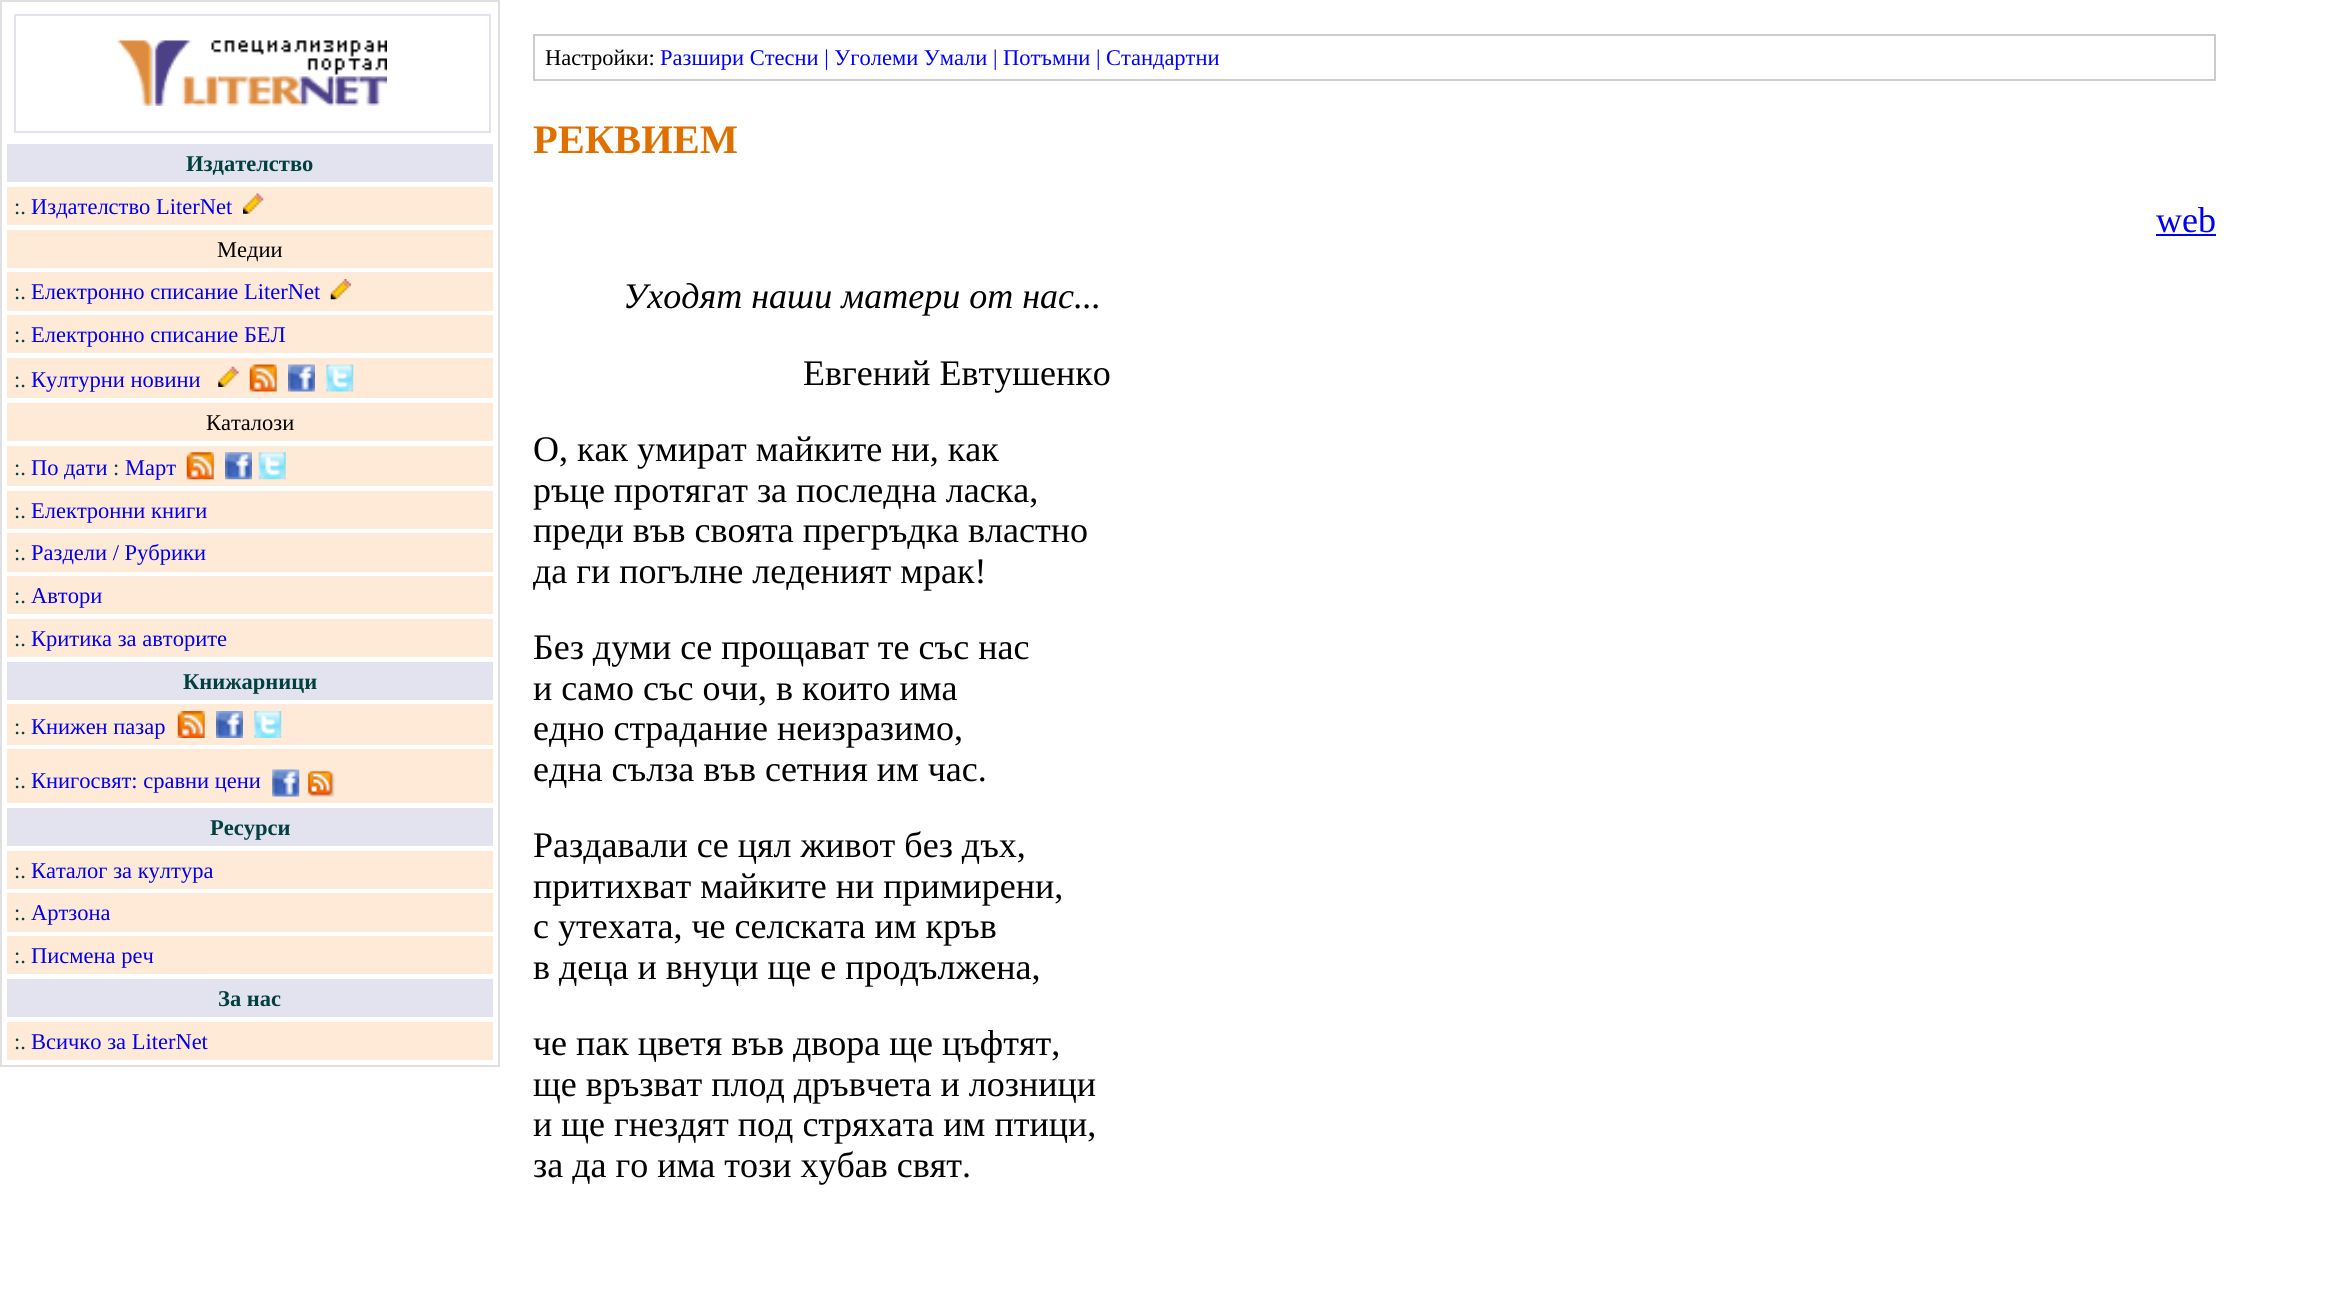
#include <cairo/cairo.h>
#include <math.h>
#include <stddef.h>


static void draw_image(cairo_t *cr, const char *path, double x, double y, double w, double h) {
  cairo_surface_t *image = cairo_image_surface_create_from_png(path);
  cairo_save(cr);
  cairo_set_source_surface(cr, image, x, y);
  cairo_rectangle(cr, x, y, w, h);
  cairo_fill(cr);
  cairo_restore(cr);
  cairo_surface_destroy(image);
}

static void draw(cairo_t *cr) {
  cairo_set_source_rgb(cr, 1, 1, 1);
  cairo_paint(cr);
  cairo_rectangle(cr, 1, 1, 498, 1065);
  cairo_set_source_rgb(cr, 224 / 255.0, 224 / 255.0, 224 / 255.0);
  cairo_stroke(cr);
  cairo_rectangle(cr, 15, 15, 475, 117);
  cairo_set_source_rgb(cr, 227 / 255.0, 227 / 255.0, 240 / 255.0);
  cairo_stroke(cr);
  draw_image(cr, "images/1.png", 117, 40, 270, 66);
  cairo_rectangle(cr, 7, 144, 486, 38);
  cairo_fill(cr);
  cairo_set_source_rgb(cr, 1, 234 / 255.0, 215 / 255.0);
  cairo_rectangle(cr, 7, 187, 486, 38);
  cairo_fill(cr);
  draw_image(cr, "images/2.png", 243, 193, 21, 21);
  cairo_rectangle(cr, 7, 230, 486, 38);
  cairo_fill(cr);
  cairo_rectangle(cr, 7, 272, 486, 39);
  cairo_fill(cr);
  draw_image(cr, "images/3.png", 330, 279, 21, 21);
  cairo_rectangle(cr, 7, 315, 486, 38);
  cairo_fill(cr);
  cairo_rectangle(cr, 7, 358, 486, 40);
  cairo_fill(cr);
  draw_image(cr, "images/4.png", 218, 366, 21, 21);
  draw_image(cr, "images/5.png", 249, 364, 28, 28);
  draw_image(cr, "images/6.png", 288, 364, 27, 28);
  draw_image(cr, "images/7.png", 326, 364, 28, 28);
  cairo_rectangle(cr, 7, 403, 486, 38);
  cairo_fill(cr);
  cairo_rectangle(cr, 7, 446, 486, 40);
  cairo_fill(cr);
  draw_image(cr, "images/8.png", 186, 452, 28, 28);
  draw_image(cr, "images/9.png", 225, 452, 27, 28);
  draw_image(cr, "images/10.png", 258, 452, 28, 28);
  cairo_rectangle(cr, 7, 491, 486, 38);
  cairo_fill(cr);
  cairo_rectangle(cr, 7, 533, 486, 39);
  cairo_fill(cr);
  cairo_rectangle(cr, 7, 576, 486, 38);
  cairo_fill(cr);
  cairo_rectangle(cr, 7, 619, 486, 38);
  cairo_fill(cr);
  cairo_set_source_rgb(cr, 227 / 255.0, 227 / 255.0, 240 / 255.0);
  cairo_rectangle(cr, 7, 662, 486, 38);
  cairo_fill(cr);
  cairo_set_source_rgb(cr, 1, 234 / 255.0, 215 / 255.0);
  cairo_rectangle(cr, 7, 704, 486, 41);
  cairo_fill(cr);
  draw_image(cr, "images/11.png", 177, 711, 28, 27);
  draw_image(cr, "images/12.png", 216, 711, 27, 27);
  draw_image(cr, "images/13.png", 254, 711, 28, 27);
  cairo_rectangle(cr, 7, 749, 486, 54);
  cairo_fill(cr);
  draw_image(cr, "images/14.png", 272, 769, 28, 28);
  draw_image(cr, "images/15.png", 308, 770, 27, 27);
  cairo_set_source_rgb(cr, 227 / 255.0, 227 / 255.0, 240 / 255.0);
  cairo_rectangle(cr, 7, 808, 486, 38);
  cairo_fill(cr);
  cairo_set_source_rgb(cr, 1, 234 / 255.0, 215 / 255.0);
  cairo_rectangle(cr, 7, 851, 486, 38);
  cairo_fill(cr);
  cairo_rectangle(cr, 7, 893, 486, 39);
  cairo_fill(cr);
  cairo_rectangle(cr, 7, 936, 486, 38);
  cairo_fill(cr);
  cairo_set_source_rgb(cr, 227 / 255.0, 227 / 255.0, 240 / 255.0);
  cairo_rectangle(cr, 7, 979, 486, 38);
  cairo_fill(cr);
  cairo_set_source_rgb(cr, 1, 234 / 255.0, 215 / 255.0);
  cairo_rectangle(cr, 7, 1022, 486, 38);
  cairo_fill(cr);
  cairo_rectangle(cr, 534, 35, 1681, 45);
  cairo_set_source_rgb(cr, 204 / 255.0, 204 / 255.0, 204 / 255.0);
  cairo_stroke(cr);
  cairo_set_source_rgb(cr, 0, 0, 238 / 255.0);
  cairo_rectangle(cr, 2156, 234, 60, 2);
  cairo_fill(cr);
  cairo_select_font_face(cr, "Liberation Serif", CAIRO_FONT_SLANT_NORMAL, CAIRO_FONT_WEIGHT_BOLD);
  cairo_set_font_size(cr, 22.5);
  cairo_set_source_rgb(cr, 0, 64 / 255.0, 64 / 255.0);
  cairo_move_to(cr, 186, 171);
  cairo_show_text(cr, "Издателство");
  cairo_select_font_face(cr, "Liberation Serif", CAIRO_FONT_SLANT_NORMAL, CAIRO_FONT_WEIGHT_NORMAL);
  cairo_move_to(cr, 14, 214);
  cairo_show_text(cr, ":.");
  cairo_set_source_rgb(cr, 0, 0, 238 / 255.0);
  cairo_move_to(cr, 31, 214);
  cairo_show_text(cr, "Издателство LiterNet");
  cairo_set_source_rgb(cr, 0, 0, 0);
  cairo_move_to(cr, 217, 257);
  cairo_show_text(cr, "Медии");
  cairo_set_source_rgb(cr, 0, 64 / 255.0, 64 / 255.0);
  cairo_move_to(cr, 14, 299);
  cairo_show_text(cr, ":.");
  cairo_set_source_rgb(cr, 0, 0, 238 / 255.0);
  cairo_move_to(cr, 31, 299);
  cairo_show_text(cr, "Електронно списание LiterNet");
  cairo_set_source_rgb(cr, 0, 64 / 255.0, 64 / 255.0);
  cairo_move_to(cr, 14, 342);
  cairo_show_text(cr, ":.");
  cairo_set_source_rgb(cr, 0, 0, 238 / 255.0);
  cairo_move_to(cr, 31, 342);
  cairo_show_text(cr, "Електронно списание БЕЛ");
  cairo_set_source_rgb(cr, 0, 64 / 255.0, 64 / 255.0);
  cairo_move_to(cr, 14, 387);
  cairo_show_text(cr, ":.");
  cairo_set_source_rgb(cr, 0, 0, 238 / 255.0);
  cairo_move_to(cr, 31, 387);
  cairo_show_text(cr, "Културни новини");
  cairo_set_source_rgb(cr, 0, 0, 0);
  cairo_move_to(cr, 206, 430);
  cairo_show_text(cr, "Каталози");
  cairo_set_source_rgb(cr, 0, 64 / 255.0, 64 / 255.0);
  cairo_move_to(cr, 14, 475);
  cairo_show_text(cr, ":.");
  cairo_set_source_rgb(cr, 0, 0, 238 / 255.0);
  cairo_move_to(cr, 31, 475);
  cairo_show_text(cr, "По дати");
  cairo_set_source_rgb(cr, 0, 64 / 255.0, 64 / 255.0);
  cairo_move_to(cr, 113, 475);
  cairo_show_text(cr, ":");
  cairo_set_source_rgb(cr, 0, 0, 238 / 255.0);
  cairo_move_to(cr, 125, 475);
  cairo_show_text(cr, "Март");
  cairo_set_source_rgb(cr, 0, 64 / 255.0, 64 / 255.0);
  cairo_move_to(cr, 14, 518);
  cairo_show_text(cr, ":.");
  cairo_set_source_rgb(cr, 0, 0, 238 / 255.0);
  cairo_move_to(cr, 31, 518);
  cairo_show_text(cr, "Електронни книги");
  cairo_set_source_rgb(cr, 0, 64 / 255.0, 64 / 255.0);
  cairo_move_to(cr, 14, 560);
  cairo_show_text(cr, ":.");
  cairo_set_source_rgb(cr, 0, 0, 238 / 255.0);
  cairo_move_to(cr, 31, 560);
  cairo_show_text(cr, "Раздели / Рубрики");
  cairo_set_source_rgb(cr, 0, 64 / 255.0, 64 / 255.0);
  cairo_move_to(cr, 14, 603);
  cairo_show_text(cr, ":.");
  cairo_set_source_rgb(cr, 0, 0, 238 / 255.0);
  cairo_move_to(cr, 31, 603);
  cairo_show_text(cr, "Автори");
  cairo_set_source_rgb(cr, 0, 64 / 255.0, 64 / 255.0);
  cairo_move_to(cr, 14, 646);
  cairo_show_text(cr, ":.");
  cairo_set_source_rgb(cr, 0, 0, 238 / 255.0);
  cairo_move_to(cr, 31, 646);
  cairo_show_text(cr, "Критика за авторите");
  cairo_select_font_face(cr, "Liberation Serif", CAIRO_FONT_SLANT_NORMAL, CAIRO_FONT_WEIGHT_BOLD);
  cairo_set_source_rgb(cr, 0, 64 / 255.0, 64 / 255.0);
  cairo_move_to(cr, 183, 689);
  cairo_show_text(cr, "Книжарници");
  cairo_select_font_face(cr, "Liberation Serif", CAIRO_FONT_SLANT_NORMAL, CAIRO_FONT_WEIGHT_NORMAL);
  cairo_move_to(cr, 14, 734);
  cairo_show_text(cr, ":.");
  cairo_set_source_rgb(cr, 0, 0, 238 / 255.0);
  cairo_move_to(cr, 31, 734);
  cairo_show_text(cr, "Книжен пазар");
  cairo_set_source_rgb(cr, 0, 64 / 255.0, 64 / 255.0);
  cairo_move_to(cr, 14, 788);
  cairo_show_text(cr, ":.");
  cairo_set_source_rgb(cr, 0, 0, 238 / 255.0);
  cairo_move_to(cr, 31, 788);
  cairo_show_text(cr, "Книгосвят: сравни цени");
  cairo_select_font_face(cr, "Liberation Serif", CAIRO_FONT_SLANT_NORMAL, CAIRO_FONT_WEIGHT_BOLD);
  cairo_set_source_rgb(cr, 0, 64 / 255.0, 64 / 255.0);
  cairo_move_to(cr, 210, 835);
  cairo_show_text(cr, "Ресурси");
  cairo_select_font_face(cr, "Liberation Serif", CAIRO_FONT_SLANT_NORMAL, CAIRO_FONT_WEIGHT_NORMAL);
  cairo_move_to(cr, 14, 878);
  cairo_show_text(cr, ":.");
  cairo_set_source_rgb(cr, 0, 0, 238 / 255.0);
  cairo_move_to(cr, 31, 878);
  cairo_show_text(cr, "Каталог за култура");
  cairo_set_source_rgb(cr, 0, 64 / 255.0, 64 / 255.0);
  cairo_move_to(cr, 14, 920);
  cairo_show_text(cr, ":.");
  cairo_set_source_rgb(cr, 0, 0, 238 / 255.0);
  cairo_move_to(cr, 31, 920);
  cairo_show_text(cr, "Артзона");
  cairo_set_source_rgb(cr, 0, 64 / 255.0, 64 / 255.0);
  cairo_move_to(cr, 14, 963);
  cairo_show_text(cr, ":.");
  cairo_set_source_rgb(cr, 0, 0, 238 / 255.0);
  cairo_move_to(cr, 31, 963);
  cairo_show_text(cr, "Писмена реч");
  cairo_select_font_face(cr, "Liberation Serif", CAIRO_FONT_SLANT_NORMAL, CAIRO_FONT_WEIGHT_BOLD);
  cairo_set_source_rgb(cr, 0, 64 / 255.0, 64 / 255.0);
  cairo_move_to(cr, 218, 1006);
  cairo_show_text(cr, "За нас");
  cairo_select_font_face(cr, "Liberation Serif", CAIRO_FONT_SLANT_NORMAL, CAIRO_FONT_WEIGHT_NORMAL);
  cairo_move_to(cr, 14, 1049);
  cairo_show_text(cr, ":.");
  cairo_set_source_rgb(cr, 0, 0, 238 / 255.0);
  cairo_move_to(cr, 31, 1049);
  cairo_show_text(cr, "Всичко за LiterNet");
  cairo_set_source_rgb(cr, 0, 0, 0);
  cairo_move_to(cr, 545, 65);
  cairo_show_text(cr, "Настройки:");
  cairo_set_source_rgb(cr, 0, 0, 1);
  cairo_move_to(cr, 660, 65);
  cairo_show_text(cr, "Разшири Стесни | Уголеми Умали | Потъмни | Стандартни");
  cairo_select_font_face(cr, "Liberation Serif", CAIRO_FONT_SLANT_NORMAL, CAIRO_FONT_WEIGHT_BOLD);
  cairo_set_font_size(cr, 40.5);
  cairo_set_source_rgb(cr, 223 / 255.0, 112 / 255.0, 0);
  cairo_move_to(cr, 533, 153);
  cairo_show_text(cr, "РЕКВИЕМ");
  cairo_select_font_face(cr, "Liberation Serif", CAIRO_FONT_SLANT_NORMAL, CAIRO_FONT_WEIGHT_NORMAL);
  cairo_set_font_size(cr, 36);
  cairo_set_source_rgb(cr, 0, 0, 238 / 255.0);
  cairo_move_to(cr, 2156, 232);
  cairo_show_text(cr, "web");
  cairo_select_font_face(cr, "Liberation Serif", CAIRO_FONT_SLANT_ITALIC, CAIRO_FONT_WEIGHT_NORMAL);
  cairo_set_source_rgb(cr, 0, 0, 0);
  cairo_move_to(cr, 623, 308);
  cairo_show_text(cr, "Уходят наши матери от нас...");
  cairo_select_font_face(cr, "Liberation Serif", CAIRO_FONT_SLANT_NORMAL, CAIRO_FONT_WEIGHT_NORMAL);
  cairo_move_to(cr, 803, 385);
  cairo_show_text(cr, "Евгений Евтушенко");
  cairo_move_to(cr, 533, 461);
  cairo_show_text(cr, "О, как умират майките ни, как");
  cairo_move_to(cr, 533, 502);
  cairo_show_text(cr, "ръце протягат за последна ласка,");
  cairo_move_to(cr, 533, 542);
  cairo_show_text(cr, "преди във своята прегръдка властно");
  cairo_move_to(cr, 533, 583);
  cairo_show_text(cr, "да ги погълне леденият мрак!");
  cairo_move_to(cr, 533, 659);
  cairo_show_text(cr, "Без думи се прощават те със нас");
  cairo_move_to(cr, 533, 700);
  cairo_show_text(cr, "и само със очи, в които има");
  cairo_move_to(cr, 533, 740);
  cairo_show_text(cr, "едно страдание неизразимо,");
  cairo_move_to(cr, 533, 781);
  cairo_show_text(cr, "една сълза във сетния им час.");
  cairo_move_to(cr, 533, 857);
  cairo_show_text(cr, "Раздавали се цял живот без дъх,");
  cairo_move_to(cr, 533, 898);
  cairo_show_text(cr, "притихват майките ни примирени,");
  cairo_move_to(cr, 533, 938);
  cairo_show_text(cr, "с утехата, че селската им кръв");
  cairo_move_to(cr, 533, 979);
  cairo_show_text(cr, "в деца и внуци ще е продължена,");
  cairo_move_to(cr, 533, 1055);
  cairo_show_text(cr, "че пак цветя във двора ще цъфтят,");
  cairo_move_to(cr, 533, 1096);
  cairo_show_text(cr, "ще връзват плод дръвчета и лозници");
  cairo_move_to(cr, 533, 1136);
  cairo_show_text(cr, "и ще гнездят под стряхата им птици,");
  cairo_move_to(cr, 533, 1177);
  cairo_show_text(cr, "за да го има този хубав свят.");
}

int main(void) {
  cairo_surface_t *surface = cairo_image_surface_create(CAIRO_FORMAT_RGB24, 2331, 1307);
  cairo_t *cr = cairo_create(surface);
  cairo_font_options_t *options = cairo_font_options_create();
  cairo_font_options_set_hint_metrics(options, CAIRO_HINT_METRICS_OFF);
  cairo_font_options_set_hint_style(options, CAIRO_HINT_STYLE_NONE);
  cairo_set_font_options(cr, options);
  cairo_set_miter_limit(cr, 4);
  draw(cr);
  cairo_surface_write_to_png(surface, "out.png");
  cairo_font_options_destroy(options);
  cairo_destroy(cr);
  cairo_surface_destroy(surface);
  return 0;
}
